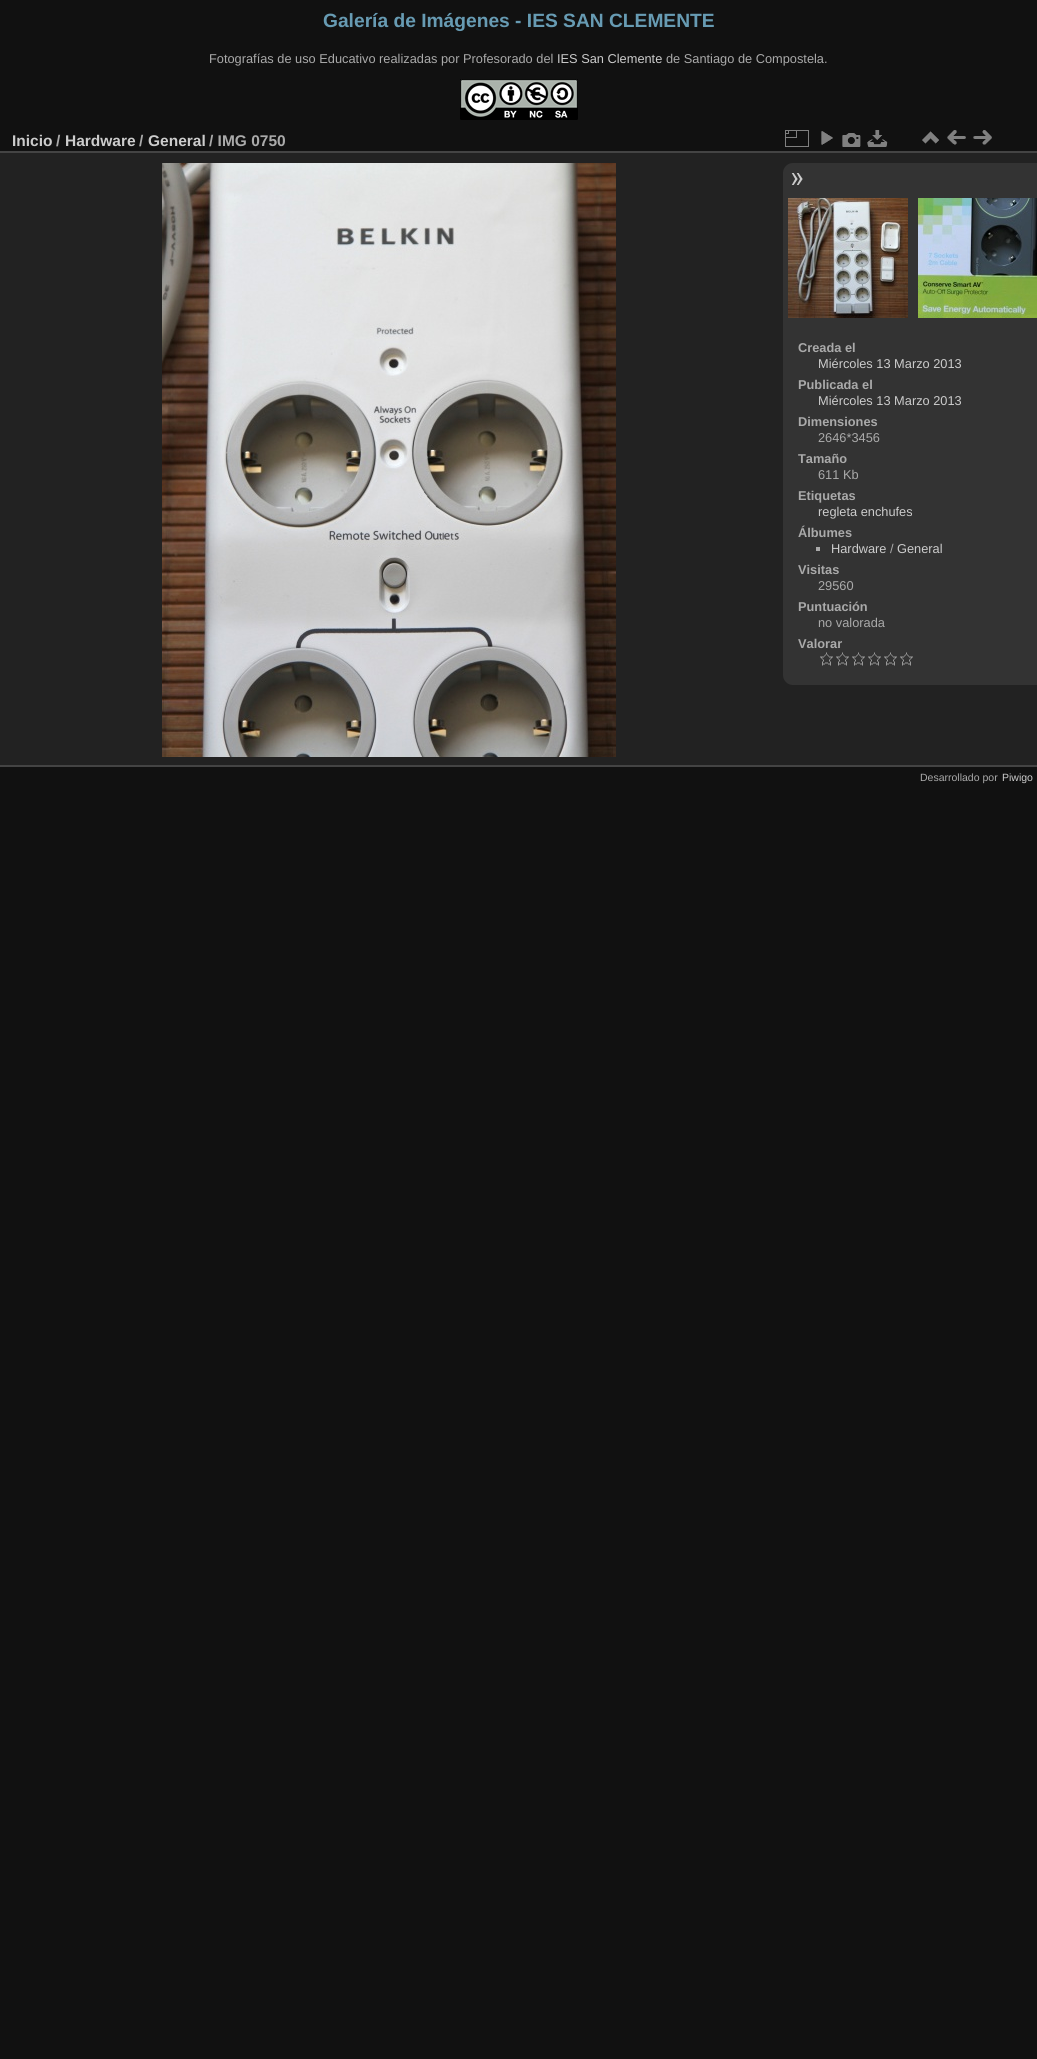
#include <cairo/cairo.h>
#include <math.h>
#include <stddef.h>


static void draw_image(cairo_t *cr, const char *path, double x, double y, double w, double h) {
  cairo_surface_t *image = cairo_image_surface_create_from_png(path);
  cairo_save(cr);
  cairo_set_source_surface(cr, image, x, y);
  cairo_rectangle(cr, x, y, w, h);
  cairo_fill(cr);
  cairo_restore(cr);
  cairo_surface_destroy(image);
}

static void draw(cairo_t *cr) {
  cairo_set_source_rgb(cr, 17 / 255.0, 17 / 255.0, 17 / 255.0);
  cairo_paint(cr);
  draw_image(cr, "images/1.png", 460, 79, 118, 41);
  cairo_set_source_rgb(cr, 34 / 255.0, 34 / 255.0, 34 / 255.0);
  cairo_rectangle(cr, 0, 153, 1037, 612);
  cairo_fill(cr);
  cairo_set_source_rgb(cr, 68 / 255.0, 68 / 255.0, 68 / 255.0);
  cairo_rectangle(cr, 0, 765, 1037, 2);
  cairo_fill(cr);
  cairo_rectangle(cr, 0, 151, 1037, 2);
  cairo_fill(cr);
  draw_image(cr, "images/2.png", 785, 130, 24, 17);
  draw_image(cr, "images/3.png", 821, 131, 12, 14);
  draw_image(cr, "images/4.png", 842, 133, 19, 14);
  draw_image(cr, "images/5.png", 867, 130, 21, 17);
  draw_image(cr, "images/6.png", 922, 131, 17, 13);
  draw_image(cr, "images/7.png", 947, 130, 19, 15);
  draw_image(cr, "images/8.png", 973, 130, 19, 15);
  draw_image(cr, "images/9.png", 162, 163, 454, 594);
  cairo_set_source_rgb(cr, 51 / 255.0, 51 / 255.0, 51 / 255.0);
  cairo_new_path(cr);
  cairo_move_to(cr, 793, 163);
  cairo_line_to(cr, 1037, 163);
  cairo_line_to(cr, 1037, 685);
  cairo_line_to(cr, 793, 685);
  cairo_curve_to(cr, 787.5, 685, 783, 680.5, 783, 675);
  cairo_line_to(cr, 783, 173);
  cairo_curve_to(cr, 783, 167.5, 787.5, 163, 793, 163);
  cairo_close_path(cr);
  cairo_fill(cr);
  draw_image(cr, "images/10.png", 791, 173, 12, 12);
  draw_image(cr, "images/11.png", 788, 198, 120, 120);
  draw_image(cr, "images/12.png", 918, 198, 119, 120);
  cairo_set_source_rgb(cr, 170 / 255.0, 170 / 255.0, 170 / 255.0);
  cairo_rectangle(cr, 816, 547, 4, 4);
  cairo_fill(cr);
  draw_image(cr, "images/13.png", 820, 652, 13, 14);
  draw_image(cr, "images/13.png", 836, 652, 13, 14);
  draw_image(cr, "images/13.png", 852, 652, 13, 14);
  draw_image(cr, "images/13.png", 868, 652, 13, 14);
  draw_image(cr, "images/13.png", 884, 652, 13, 14);
  draw_image(cr, "images/13.png", 900, 652, 13, 14);
  cairo_select_font_face(cr, "Liberation Sans", CAIRO_FONT_SLANT_NORMAL, CAIRO_FONT_WEIGHT_BOLD);
  cairo_set_font_size(cr, 19.2);
  cairo_set_source_rgb(cr, 103 / 255.0, 155 / 255.0, 179 / 255.0);
  cairo_move_to(cr, 323, 27);
  cairo_show_text(cr, "Galería de Imágenes - IES SAN CLEMENTE");
  cairo_select_font_face(cr, "Liberation Sans", CAIRO_FONT_SLANT_NORMAL, CAIRO_FONT_WEIGHT_NORMAL);
  cairo_set_font_size(cr, 12.8);
  cairo_set_source_rgb(cr, 170 / 255.0, 170 / 255.0, 170 / 255.0);
  cairo_move_to(cr, 209, 63);
  cairo_show_text(cr, "Fotografías de uso Educativo realizadas por Profesorado del");
  cairo_set_source_rgb(cr, 204 / 255.0, 204 / 255.0, 204 / 255.0);
  cairo_move_to(cr, 557, 63);
  cairo_show_text(cr, "IES San Clemente");
  cairo_set_source_rgb(cr, 170 / 255.0, 170 / 255.0, 170 / 255.0);
  cairo_move_to(cr, 666, 63);
  cairo_show_text(cr, "de Santiago de Compostela.");
  cairo_select_font_face(cr, "Liberation Sans", CAIRO_FONT_SLANT_NORMAL, CAIRO_FONT_WEIGHT_BOLD);
  cairo_set_font_size(cr, 15.5);
  cairo_set_source_rgb(cr, 204 / 255.0, 204 / 255.0, 204 / 255.0);
  cairo_move_to(cr, 12, 146);
  cairo_show_text(cr, "Inicio");
  cairo_set_source_rgb(cr, 170 / 255.0, 170 / 255.0, 170 / 255.0);
  cairo_move_to(cr, 56, 146);
  cairo_show_text(cr, "/");
  cairo_set_source_rgb(cr, 204 / 255.0, 204 / 255.0, 204 / 255.0);
  cairo_move_to(cr, 65, 146);
  cairo_show_text(cr, "Hardware");
  cairo_set_source_rgb(cr, 170 / 255.0, 170 / 255.0, 170 / 255.0);
  cairo_move_to(cr, 139, 146);
  cairo_show_text(cr, "/");
  cairo_set_source_rgb(cr, 204 / 255.0, 204 / 255.0, 204 / 255.0);
  cairo_move_to(cr, 148, 146);
  cairo_show_text(cr, "General");
  cairo_set_source_rgb(cr, 170 / 255.0, 170 / 255.0, 170 / 255.0);
  cairo_move_to(cr, 209, 146);
  cairo_show_text(cr, "/ IMG 0750");
  cairo_set_font_size(cr, 12.8);
  cairo_move_to(cr, 798, 352);
  cairo_show_text(cr, "Creada el");
  cairo_select_font_face(cr, "Liberation Sans", CAIRO_FONT_SLANT_NORMAL, CAIRO_FONT_WEIGHT_NORMAL);
  cairo_set_source_rgb(cr, 204 / 255.0, 204 / 255.0, 204 / 255.0);
  cairo_move_to(cr, 818, 368);
  cairo_show_text(cr, "Miércoles 13 Marzo 2013");
  cairo_select_font_face(cr, "Liberation Sans", CAIRO_FONT_SLANT_NORMAL, CAIRO_FONT_WEIGHT_BOLD);
  cairo_set_source_rgb(cr, 170 / 255.0, 170 / 255.0, 170 / 255.0);
  cairo_move_to(cr, 798, 389);
  cairo_show_text(cr, "Publicada el");
  cairo_select_font_face(cr, "Liberation Sans", CAIRO_FONT_SLANT_NORMAL, CAIRO_FONT_WEIGHT_NORMAL);
  cairo_set_source_rgb(cr, 204 / 255.0, 204 / 255.0, 204 / 255.0);
  cairo_move_to(cr, 818, 405);
  cairo_show_text(cr, "Miércoles 13 Marzo 2013");
  cairo_select_font_face(cr, "Liberation Sans", CAIRO_FONT_SLANT_NORMAL, CAIRO_FONT_WEIGHT_BOLD);
  cairo_set_source_rgb(cr, 170 / 255.0, 170 / 255.0, 170 / 255.0);
  cairo_move_to(cr, 798, 426);
  cairo_show_text(cr, "Dimensiones");
  cairo_select_font_face(cr, "Liberation Sans", CAIRO_FONT_SLANT_NORMAL, CAIRO_FONT_WEIGHT_NORMAL);
  cairo_move_to(cr, 818, 442);
  cairo_show_text(cr, "2646*3456");
  cairo_select_font_face(cr, "Liberation Sans", CAIRO_FONT_SLANT_NORMAL, CAIRO_FONT_WEIGHT_BOLD);
  cairo_move_to(cr, 798, 463);
  cairo_show_text(cr, "Tamaño");
  cairo_select_font_face(cr, "Liberation Sans", CAIRO_FONT_SLANT_NORMAL, CAIRO_FONT_WEIGHT_NORMAL);
  cairo_move_to(cr, 818, 479);
  cairo_show_text(cr, "611 Kb");
  cairo_select_font_face(cr, "Liberation Sans", CAIRO_FONT_SLANT_NORMAL, CAIRO_FONT_WEIGHT_BOLD);
  cairo_move_to(cr, 798, 500);
  cairo_show_text(cr, "Etiquetas");
  cairo_select_font_face(cr, "Liberation Sans", CAIRO_FONT_SLANT_NORMAL, CAIRO_FONT_WEIGHT_NORMAL);
  cairo_set_source_rgb(cr, 204 / 255.0, 204 / 255.0, 204 / 255.0);
  cairo_move_to(cr, 818, 516);
  cairo_show_text(cr, "regleta enchufes");
  cairo_select_font_face(cr, "Liberation Sans", CAIRO_FONT_SLANT_NORMAL, CAIRO_FONT_WEIGHT_BOLD);
  cairo_set_source_rgb(cr, 170 / 255.0, 170 / 255.0, 170 / 255.0);
  cairo_move_to(cr, 798, 537);
  cairo_show_text(cr, "Álbumes");
  cairo_select_font_face(cr, "Liberation Sans", CAIRO_FONT_SLANT_NORMAL, CAIRO_FONT_WEIGHT_NORMAL);
  cairo_set_source_rgb(cr, 204 / 255.0, 204 / 255.0, 204 / 255.0);
  cairo_move_to(cr, 831, 553);
  cairo_show_text(cr, "Hardware");
  cairo_set_source_rgb(cr, 170 / 255.0, 170 / 255.0, 170 / 255.0);
  cairo_move_to(cr, 890, 553);
  cairo_show_text(cr, "/");
  cairo_set_source_rgb(cr, 204 / 255.0, 204 / 255.0, 204 / 255.0);
  cairo_move_to(cr, 897, 553);
  cairo_show_text(cr, "General");
  cairo_select_font_face(cr, "Liberation Sans", CAIRO_FONT_SLANT_NORMAL, CAIRO_FONT_WEIGHT_BOLD);
  cairo_set_source_rgb(cr, 170 / 255.0, 170 / 255.0, 170 / 255.0);
  cairo_move_to(cr, 798, 574);
  cairo_show_text(cr, "Visitas");
  cairo_select_font_face(cr, "Liberation Sans", CAIRO_FONT_SLANT_NORMAL, CAIRO_FONT_WEIGHT_NORMAL);
  cairo_move_to(cr, 818, 590);
  cairo_show_text(cr, "29560");
  cairo_select_font_face(cr, "Liberation Sans", CAIRO_FONT_SLANT_NORMAL, CAIRO_FONT_WEIGHT_BOLD);
  cairo_move_to(cr, 798, 611);
  cairo_show_text(cr, "Puntuación");
  cairo_select_font_face(cr, "Liberation Sans", CAIRO_FONT_SLANT_NORMAL, CAIRO_FONT_WEIGHT_NORMAL);
  cairo_move_to(cr, 818, 627);
  cairo_show_text(cr, "no valorada");
  cairo_select_font_face(cr, "Liberation Sans", CAIRO_FONT_SLANT_NORMAL, CAIRO_FONT_WEIGHT_BOLD);
  cairo_move_to(cr, 798, 648);
  cairo_show_text(cr, "Valorar");
  cairo_select_font_face(cr, "Liberation Sans", CAIRO_FONT_SLANT_NORMAL, CAIRO_FONT_WEIGHT_NORMAL);
  cairo_set_font_size(cr, 10.5);
  cairo_move_to(cr, 920, 781);
  cairo_show_text(cr, "Desarrollado por");
  cairo_set_source_rgb(cr, 204 / 255.0, 204 / 255.0, 204 / 255.0);
  cairo_move_to(cr, 1002, 781);
  cairo_show_text(cr, "Piwigo");
}

int main(void) {
  cairo_surface_t *surface = cairo_image_surface_create(CAIRO_FORMAT_RGB24, 1037, 2059);
  cairo_t *cr = cairo_create(surface);
  cairo_font_options_t *options = cairo_font_options_create();
  cairo_font_options_set_hint_metrics(options, CAIRO_HINT_METRICS_OFF);
  cairo_font_options_set_hint_style(options, CAIRO_HINT_STYLE_NONE);
  cairo_set_font_options(cr, options);
  cairo_set_miter_limit(cr, 4);
  draw(cr);
  cairo_surface_write_to_png(surface, "out.png");
  cairo_font_options_destroy(options);
  cairo_destroy(cr);
  cairo_surface_destroy(surface);
  return 0;
}
